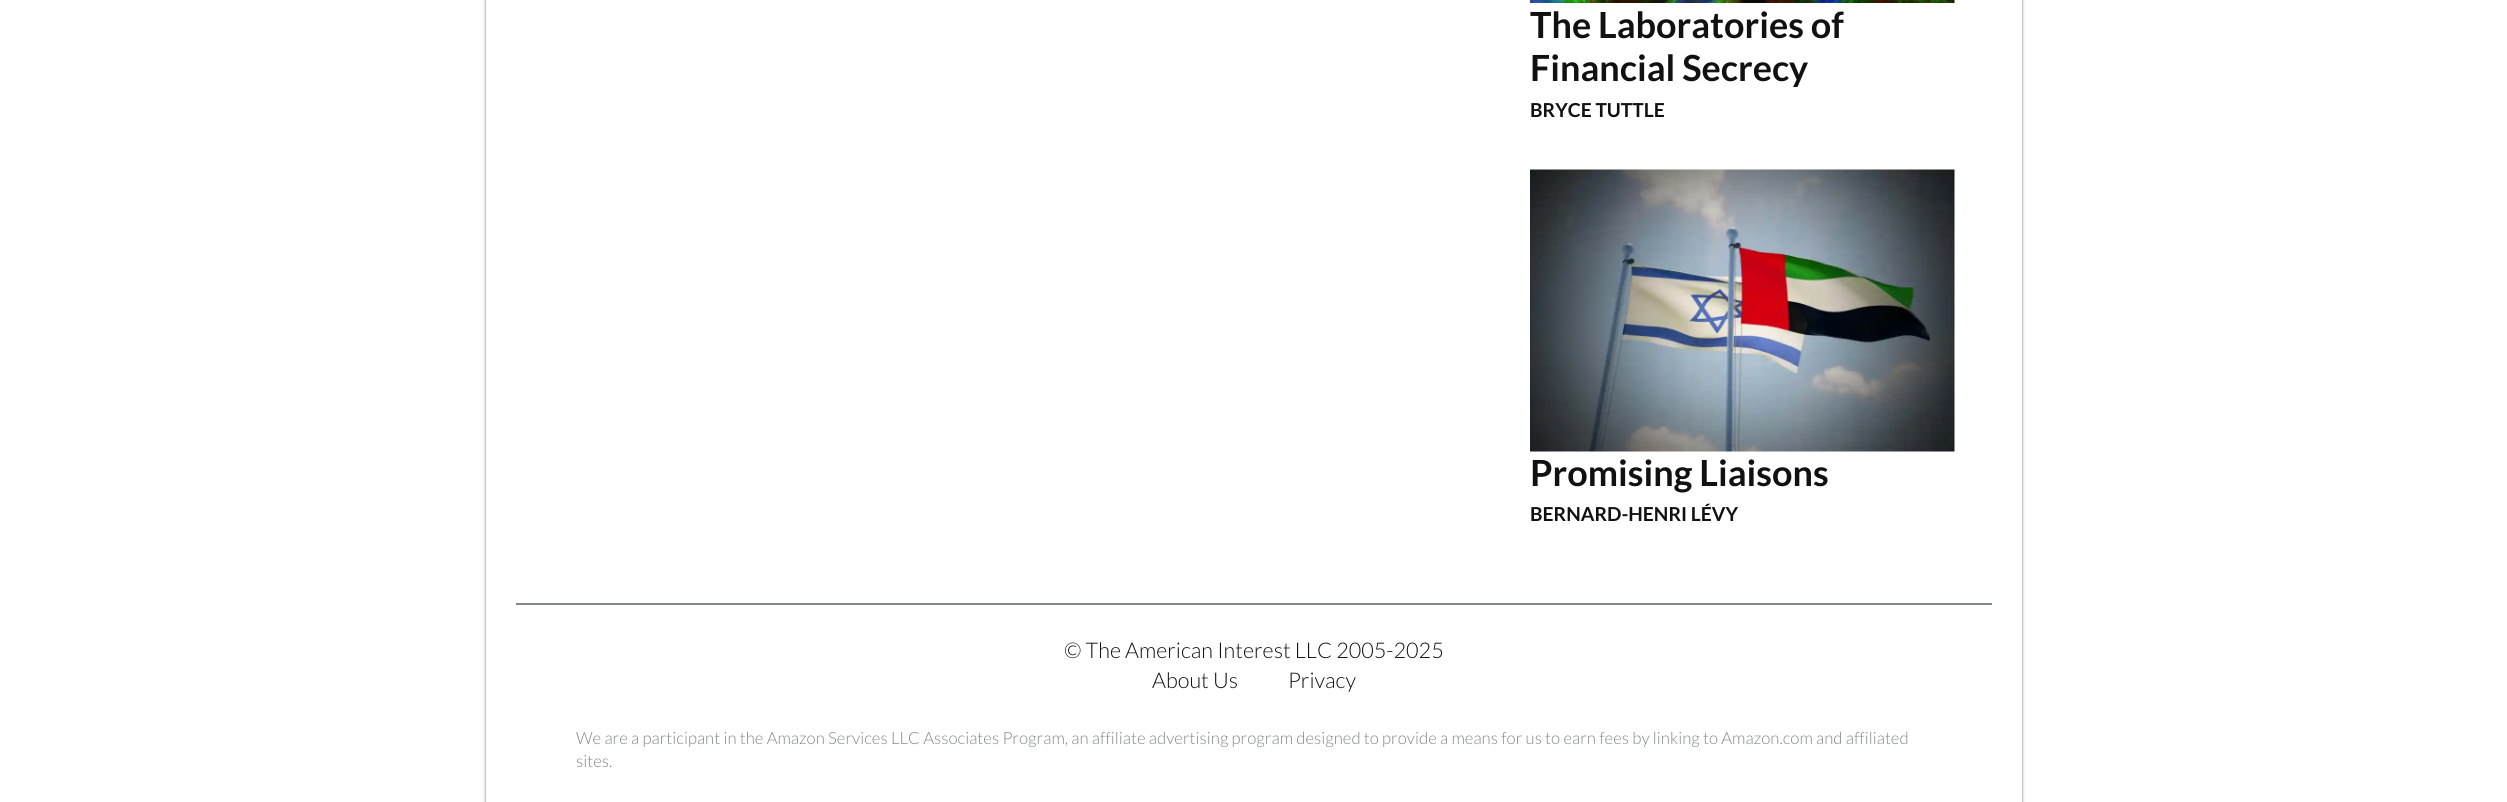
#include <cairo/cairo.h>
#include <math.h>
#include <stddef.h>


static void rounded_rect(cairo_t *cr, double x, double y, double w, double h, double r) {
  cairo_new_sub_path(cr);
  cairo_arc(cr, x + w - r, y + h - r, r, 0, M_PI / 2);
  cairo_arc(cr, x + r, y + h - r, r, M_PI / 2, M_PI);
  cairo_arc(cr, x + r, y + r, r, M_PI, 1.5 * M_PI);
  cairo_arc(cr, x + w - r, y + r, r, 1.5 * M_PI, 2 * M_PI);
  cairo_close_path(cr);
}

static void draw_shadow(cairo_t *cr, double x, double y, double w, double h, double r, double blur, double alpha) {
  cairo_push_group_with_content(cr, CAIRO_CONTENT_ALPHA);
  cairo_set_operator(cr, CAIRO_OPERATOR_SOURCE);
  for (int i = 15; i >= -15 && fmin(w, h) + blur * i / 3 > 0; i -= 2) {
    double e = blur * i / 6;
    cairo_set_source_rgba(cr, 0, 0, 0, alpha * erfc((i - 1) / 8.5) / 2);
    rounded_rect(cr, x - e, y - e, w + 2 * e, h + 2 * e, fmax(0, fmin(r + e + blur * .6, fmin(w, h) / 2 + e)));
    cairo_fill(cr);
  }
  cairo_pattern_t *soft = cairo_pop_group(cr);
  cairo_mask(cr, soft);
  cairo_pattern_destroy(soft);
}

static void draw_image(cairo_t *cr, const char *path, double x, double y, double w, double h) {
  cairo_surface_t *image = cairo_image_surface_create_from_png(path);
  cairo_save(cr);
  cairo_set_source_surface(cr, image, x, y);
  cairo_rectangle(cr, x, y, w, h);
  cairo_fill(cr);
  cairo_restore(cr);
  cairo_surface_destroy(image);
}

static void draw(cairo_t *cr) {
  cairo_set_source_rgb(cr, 1, 1, 1);
  cairo_paint(cr);
  cairo_save(cr);
  cairo_set_fill_rule(cr, CAIRO_FILL_RULE_EVEN_ODD);
  cairo_new_path(cr);
  cairo_move_to(cr, 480, 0);
  cairo_line_to(cr, 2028, 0);
  cairo_line_to(cr, 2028, 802);
  cairo_line_to(cr, 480, 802);
  cairo_close_path(cr);
  cairo_move_to(cr, 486, -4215);
  cairo_line_to(cr, 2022, -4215);
  cairo_line_to(cr, 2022, 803);
  cairo_line_to(cr, 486, 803);
  cairo_close_path(cr);
  cairo_clip(cr);
  cairo_set_source_rgb(cr, 0, 0, 0);
  draw_shadow(cr, 486, -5, 1536, 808, 0, 1.5, 0.55);
  cairo_restore(cr);
  draw_image(cr, "images/1.png", 1530, 0, 425, 3);
  draw_image(cr, "images/2.png", 1530, 169, 425, 283);
  cairo_set_source_rgb(cr, 129 / 255.0, 135 / 255.0, 139 / 255.0);
  cairo_rectangle(cr, 516, 603, 1476, 2);
  cairo_fill(cr);
  cairo_select_font_face(cr, "Lato", CAIRO_FONT_SLANT_NORMAL, CAIRO_FONT_WEIGHT_BOLD);
  cairo_set_font_size(cr, 36);
  cairo_set_source_rgb(cr, 17 / 255.0, 17 / 255.0, 17 / 255.0);
  cairo_move_to(cr, 1530, 38);
  cairo_show_text(cr, "The Laboratories of");
  cairo_move_to(cr, 1530, 81);
  cairo_show_text(cr, "Financial Secrecy");
  cairo_set_font_size(cr, 19.25);
  cairo_move_to(cr, 1530, 117);
  cairo_show_text(cr, "BRYCE TUTTLE");
  cairo_set_font_size(cr, 36);
  cairo_move_to(cr, 1530, 486);
  cairo_show_text(cr, "Promising Liaisons");
  cairo_set_font_size(cr, 19.25);
  cairo_move_to(cr, 1530, 521);
  cairo_show_text(cr, "BERNARD-HENRI LÉVY");
  cairo_select_font_face(cr, "Lato Light", CAIRO_FONT_SLANT_NORMAL, CAIRO_FONT_WEIGHT_NORMAL);
  cairo_set_font_size(cr, 21.6);
  cairo_move_to(cr, 1064, 658);
  cairo_show_text(cr, "© The American Interest LLC 2005-2025");
  cairo_move_to(cr, 1152, 688);
  cairo_show_text(cr, "About Us");
  cairo_move_to(cr, 1288, 688);
  cairo_show_text(cr, "Privacy");
  cairo_set_font_size(cr, 16.8);
  cairo_set_source_rgb(cr, 129 / 255.0, 135 / 255.0, 139 / 255.0);
  cairo_move_to(cr, 576, 744);
  cairo_show_text(cr, "We are a participant in the Amazon Services LLC Associates Program, an affiliate advertising program designed to provide a means for us to earn fees by linking to Amazon.com and affiliated");
  cairo_move_to(cr, 576, 767);
  cairo_show_text(cr, "sites.");
}

int main(void) {
  cairo_surface_t *surface = cairo_image_surface_create(CAIRO_FORMAT_RGB24, 2507, 802);
  cairo_t *cr = cairo_create(surface);
  cairo_font_options_t *options = cairo_font_options_create();
  cairo_font_options_set_hint_metrics(options, CAIRO_HINT_METRICS_OFF);
  cairo_font_options_set_hint_style(options, CAIRO_HINT_STYLE_NONE);
  cairo_set_font_options(cr, options);
  cairo_set_miter_limit(cr, 4);
  draw(cr);
  cairo_surface_write_to_png(surface, "out.png");
  cairo_font_options_destroy(options);
  cairo_destroy(cr);
  cairo_surface_destroy(surface);
  return 0;
}
